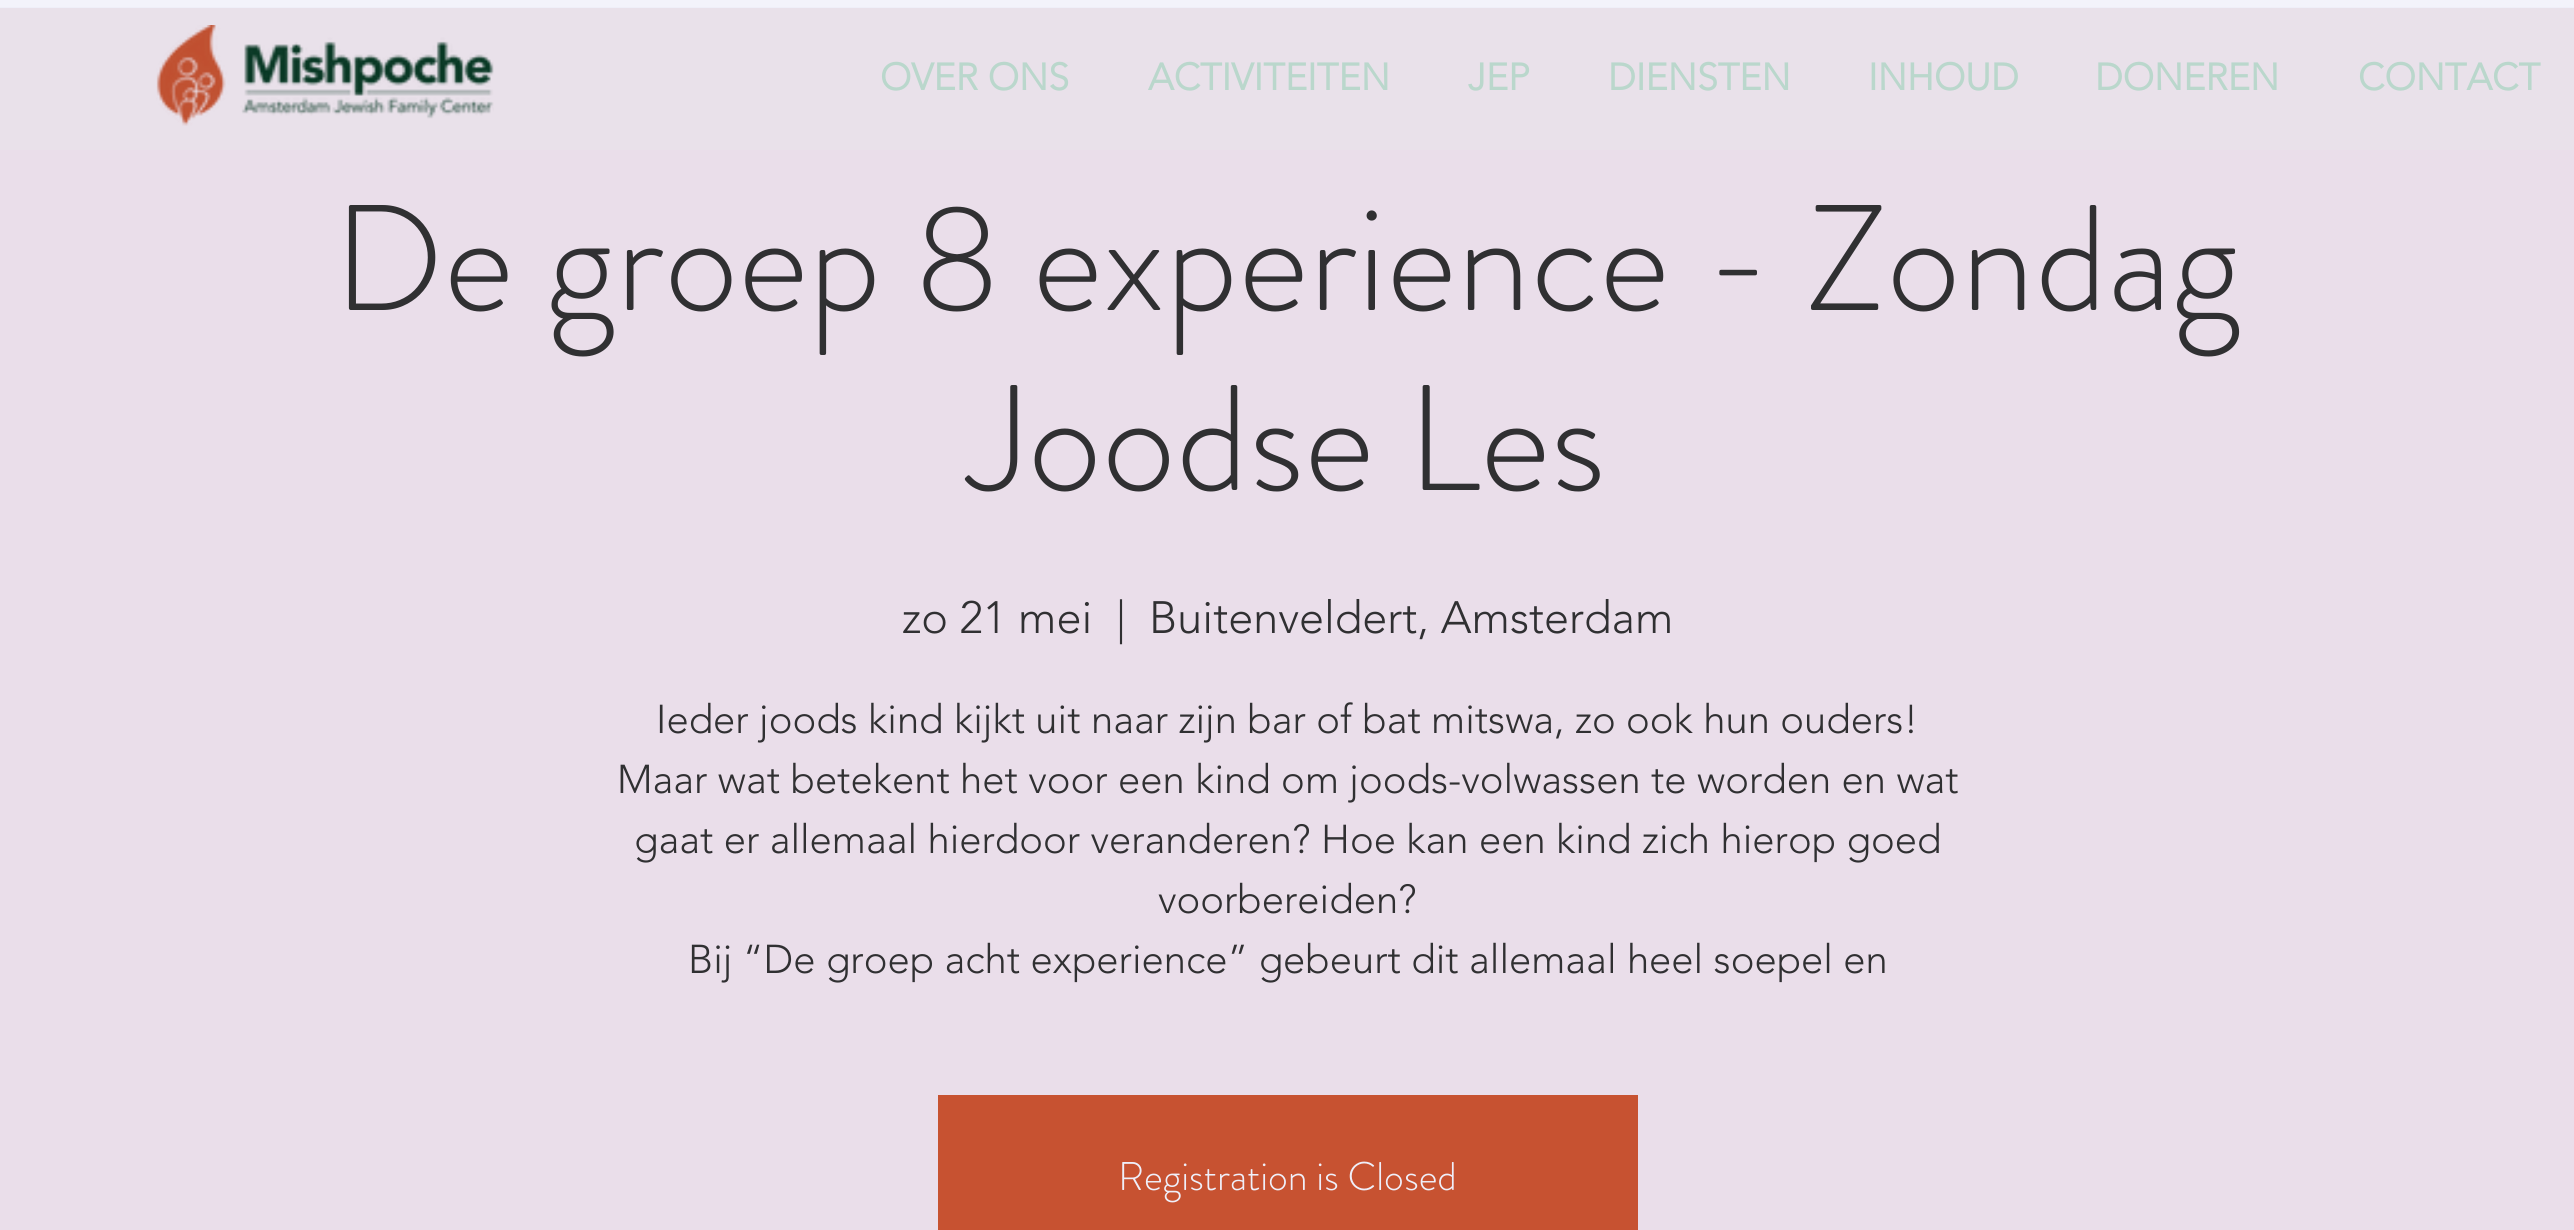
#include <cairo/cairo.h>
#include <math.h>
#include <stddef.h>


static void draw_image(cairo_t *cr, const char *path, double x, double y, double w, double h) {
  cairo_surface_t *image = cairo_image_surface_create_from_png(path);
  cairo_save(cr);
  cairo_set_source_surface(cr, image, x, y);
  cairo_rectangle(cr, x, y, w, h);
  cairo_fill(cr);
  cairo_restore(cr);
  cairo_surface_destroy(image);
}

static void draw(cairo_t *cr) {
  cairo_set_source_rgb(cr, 239 / 255.0, 239 / 255.0, 249 / 255.0);
  cairo_paint(cr);
  cairo_set_source_rgb(cr, 243 / 255.0, 243 / 255.0, 251 / 255.0);
  cairo_rectangle(cr, 0, 0, 2574, 7);
  cairo_fill(cr);
  cairo_set_source_rgb(cr, 233 / 255.0, 225 / 255.0, 234 / 255.0);
  cairo_rectangle(cr, 0, 8, 2574, 142);
  cairo_fill(cr);
  draw_image(cr, "images/1.png", 156, 25, 338, 101);
  cairo_set_source_rgb(cr, 234 / 255.0, 222 / 255.0, 234 / 255.0);
  cairo_rectangle(cr, 0, 150, 2574, 1080);
  cairo_fill(cr);
  cairo_set_source_rgb(cr, 199 / 255.0, 82 / 255.0, 49 / 255.0);
  cairo_rectangle(cr, 938, 1095, 700, 135);
  cairo_fill(cr);
  cairo_select_font_face(cr, "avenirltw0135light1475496", CAIRO_FONT_SLANT_NORMAL, CAIRO_FONT_WEIGHT_BOLD);
  cairo_set_font_size(cr, 37.5);
  cairo_set_source_rgb(cr, 186 / 255.0, 215 / 255.0, 204 / 255.0);
  cairo_move_to(cr, 880, 90);
  cairo_show_text(cr, "OVER ONS");
  cairo_move_to(cr, 1148, 90);
  cairo_show_text(cr, "ACTIVITEITEN");
  cairo_move_to(cr, 1468, 90);
  cairo_show_text(cr, "JEP");
  cairo_move_to(cr, 1608, 90);
  cairo_show_text(cr, "DIENSTEN");
  cairo_move_to(cr, 1868, 90);
  cairo_show_text(cr, "INHOUD");
  cairo_move_to(cr, 2095, 90);
  cairo_show_text(cr, "DONEREN");
  cairo_move_to(cr, 2358, 90);
  cairo_show_text(cr, "CONTACT");
  cairo_select_font_face(cr, "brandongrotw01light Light", CAIRO_FONT_SLANT_NORMAL, CAIRO_FONT_WEIGHT_NORMAL);
  cairo_set_font_size(cr, 150);
  cairo_set_source_rgb(cr, 48 / 255.0, 48 / 255.0, 50 / 255.0);
  cairo_move_to(cr, 333, 310);
  cairo_show_text(cr, "De groep 8 experience - Zondag");
  cairo_move_to(cr, 969, 490);
  cairo_show_text(cr, "Joodse Les");
  cairo_select_font_face(cr, "avenirltw0135light1475496 Light", CAIRO_FONT_SLANT_NORMAL, CAIRO_FONT_WEIGHT_NORMAL);
  cairo_set_font_size(cr, 45);
  cairo_move_to(cr, 902, 633);
  cairo_show_text(cr, "zo 21 mei");
  cairo_move_to(cr, 1116, 633);
  cairo_show_text(cr, "|");
  cairo_move_to(cr, 1149, 633);
  cairo_show_text(cr, "Buitenveldert, Amsterdam");
  cairo_set_font_size(cr, 40);
  cairo_move_to(cr, 656, 733);
  cairo_show_text(cr, "Ieder joods kind kijkt uit naar zijn bar of bat mitswa, zo ook hun ouders!");
  cairo_move_to(cr, 617, 793);
  cairo_show_text(cr, "Maar wat betekent het voor een kind om joods-volwassen te worden en wat");
  cairo_move_to(cr, 634, 853);
  cairo_show_text(cr, "gaat er allemaal hierdoor veranderen? Hoe kan een kind zich hierop goed");
  cairo_move_to(cr, 1158, 913);
  cairo_show_text(cr, "voorbereiden?");
  cairo_move_to(cr, 688, 973);
  cairo_show_text(cr, "Bij “De groep acht experience” gebeurt dit allemaal heel soepel en");
  cairo_select_font_face(cr, "brandongrotw01light Light", CAIRO_FONT_SLANT_NORMAL, CAIRO_FONT_WEIGHT_NORMAL);
  cairo_set_source_rgb(cr, 239 / 255.0, 239 / 255.0, 249 / 255.0);
  cairo_move_to(cr, 1118, 1190);
  cairo_show_text(cr, "Registration is Closed");
}

int main(void) {
  cairo_surface_t *surface = cairo_image_surface_create(CAIRO_FORMAT_RGB24, 2574, 1230);
  cairo_t *cr = cairo_create(surface);
  cairo_font_options_t *options = cairo_font_options_create();
  cairo_font_options_set_hint_metrics(options, CAIRO_HINT_METRICS_OFF);
  cairo_font_options_set_hint_style(options, CAIRO_HINT_STYLE_NONE);
  cairo_set_font_options(cr, options);
  cairo_set_miter_limit(cr, 4);
  draw(cr);
  cairo_surface_write_to_png(surface, "out.png");
  cairo_font_options_destroy(options);
  cairo_destroy(cr);
  cairo_surface_destroy(surface);
  return 0;
}
